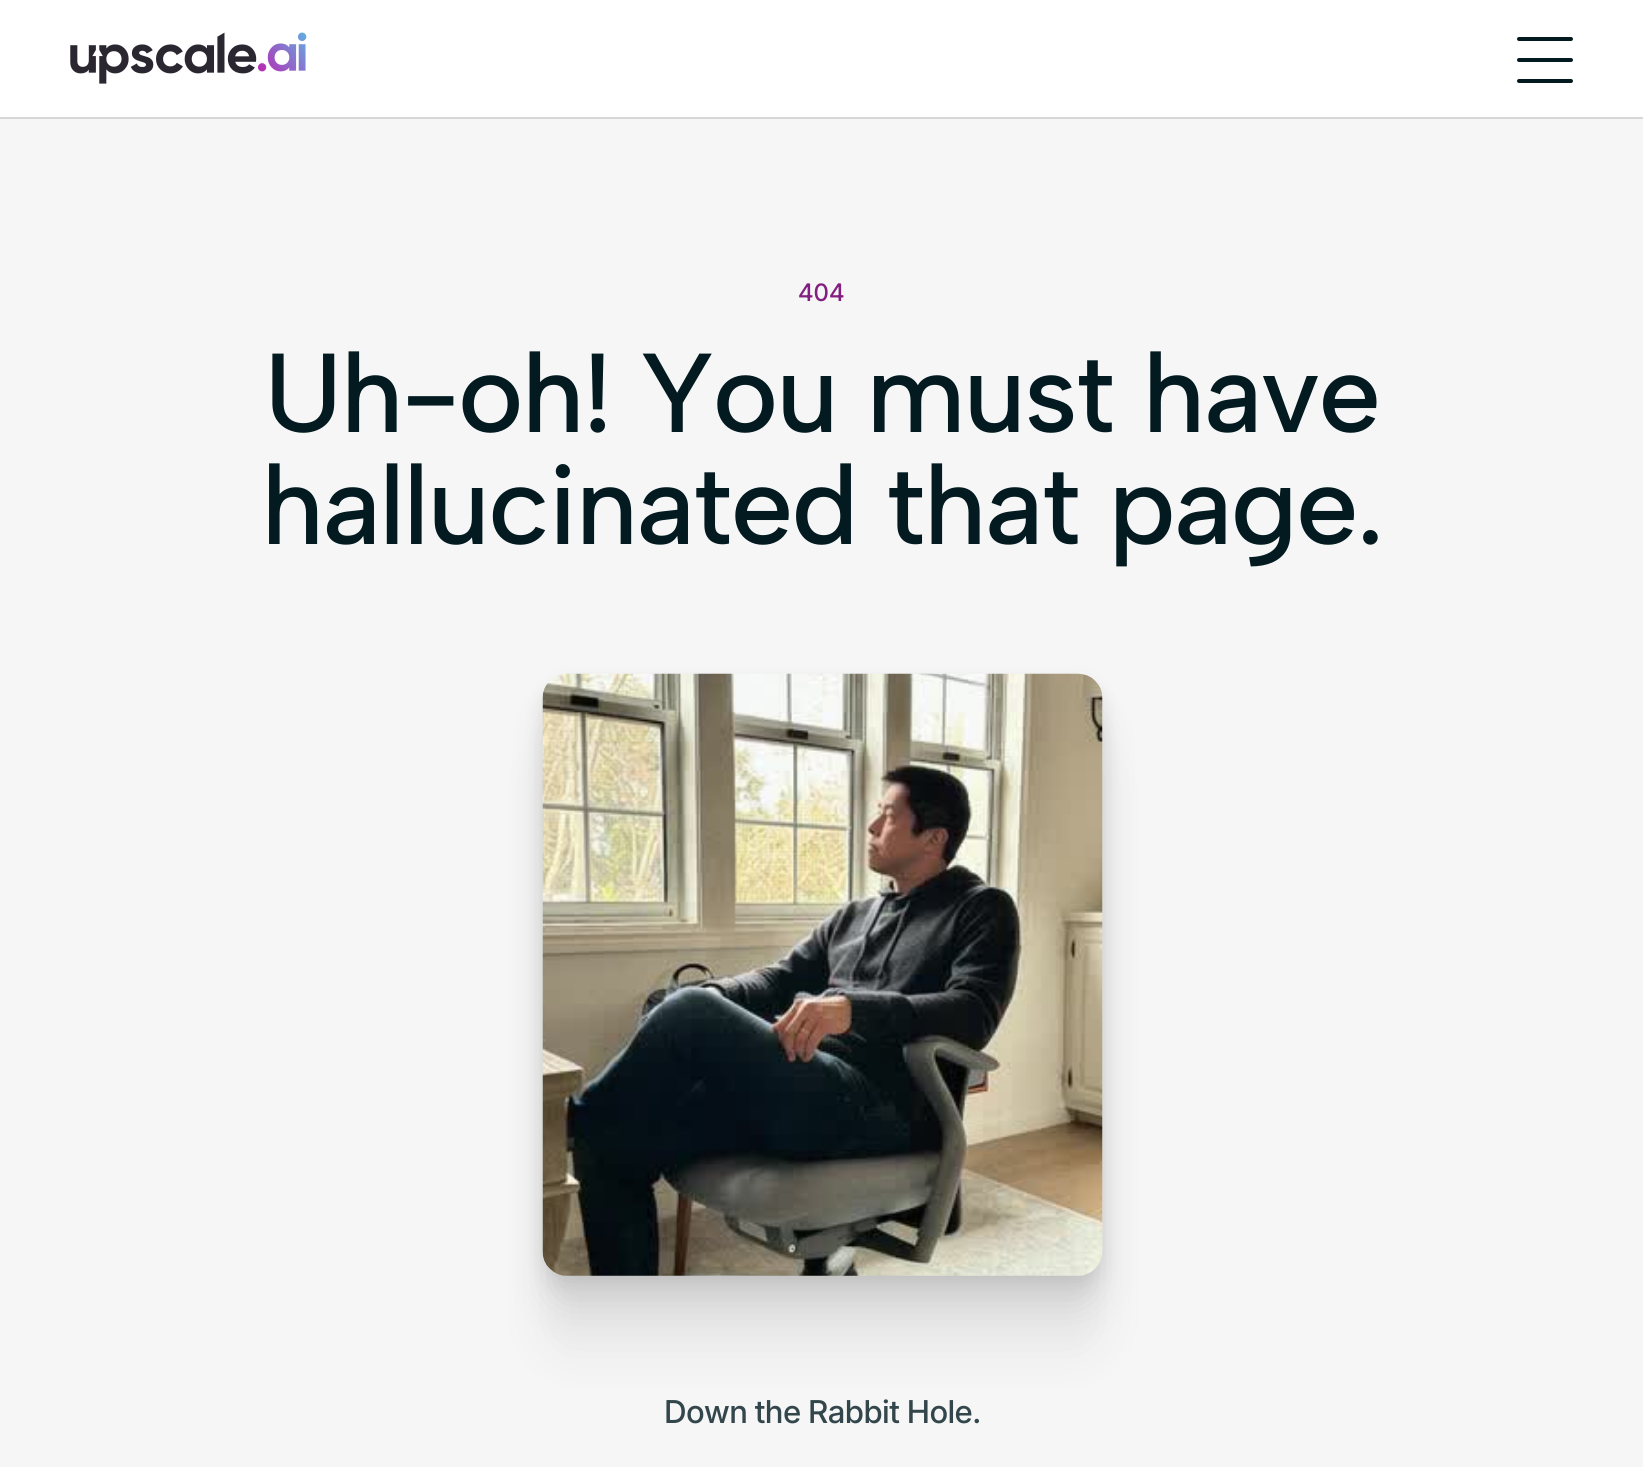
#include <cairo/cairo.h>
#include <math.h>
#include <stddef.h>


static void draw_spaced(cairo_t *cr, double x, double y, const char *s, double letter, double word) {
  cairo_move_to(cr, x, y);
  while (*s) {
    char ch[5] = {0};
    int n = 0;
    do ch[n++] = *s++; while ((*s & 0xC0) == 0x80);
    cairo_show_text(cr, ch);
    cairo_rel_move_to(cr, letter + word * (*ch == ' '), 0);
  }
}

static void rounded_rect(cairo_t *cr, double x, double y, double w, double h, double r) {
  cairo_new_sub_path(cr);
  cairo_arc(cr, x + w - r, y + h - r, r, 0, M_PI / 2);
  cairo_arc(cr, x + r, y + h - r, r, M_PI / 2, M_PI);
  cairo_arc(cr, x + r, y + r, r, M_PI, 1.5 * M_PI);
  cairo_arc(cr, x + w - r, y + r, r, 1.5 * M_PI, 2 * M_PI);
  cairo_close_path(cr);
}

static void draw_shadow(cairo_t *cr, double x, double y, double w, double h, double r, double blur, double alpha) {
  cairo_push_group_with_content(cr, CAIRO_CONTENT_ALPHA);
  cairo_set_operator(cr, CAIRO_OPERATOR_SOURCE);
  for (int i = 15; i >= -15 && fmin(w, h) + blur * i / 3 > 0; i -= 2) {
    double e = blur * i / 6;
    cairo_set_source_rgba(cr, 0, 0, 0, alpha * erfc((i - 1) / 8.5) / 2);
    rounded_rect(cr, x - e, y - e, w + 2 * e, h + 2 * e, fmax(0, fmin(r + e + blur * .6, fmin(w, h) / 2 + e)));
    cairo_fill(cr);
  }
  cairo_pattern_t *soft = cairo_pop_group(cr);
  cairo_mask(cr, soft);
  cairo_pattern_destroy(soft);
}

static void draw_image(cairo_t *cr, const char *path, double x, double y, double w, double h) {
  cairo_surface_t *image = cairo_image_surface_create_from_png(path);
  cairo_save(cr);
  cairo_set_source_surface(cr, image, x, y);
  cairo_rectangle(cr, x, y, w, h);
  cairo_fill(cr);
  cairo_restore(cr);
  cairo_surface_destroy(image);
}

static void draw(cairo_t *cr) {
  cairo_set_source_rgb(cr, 246 / 255.0, 246 / 255.0, 246 / 255.0);
  cairo_paint(cr);
  cairo_set_source_rgb(cr, 1, 1, 1);
  cairo_rectangle(cr, 0, 0, 1643, 117);
  cairo_fill(cr);
  cairo_set_source_rgb(cr, 215 / 255.0, 215 / 255.0, 215 / 255.0);
  cairo_rectangle(cr, 0, 117, 1643, 2);
  cairo_fill(cr);
  draw_image(cr, "images/1.png", 70, 32, 237, 52);
  cairo_set_source_rgb(cr, 2 / 255.0, 26 / 255.0, 32 / 255.0);
  rounded_rect(cr, 1517, 37, 56, 4, 2);
  cairo_fill(cr);
  rounded_rect(cr, 1517, 58, 56, 4, 2);
  cairo_fill(cr);
  rounded_rect(cr, 1517, 79, 56, 4, 2);
  cairo_fill(cr);
  cairo_set_source_rgb(cr, 0, 0, 0);
  draw_shadow(cr, 543, 753, 560, 602, 25, 23.5, 0.05);
  draw_shadow(cr, 543, 709, 560, 602, 25, 17.5, 0.09);
  draw_shadow(cr, 543, 683, 560, 602, 25, 9.5, 0.1);
  draw_image(cr, "images/2.png", 542, 673, 561, 603);
  cairo_select_font_face(cr, "Inter Medium", CAIRO_FONT_SLANT_NORMAL, CAIRO_FONT_WEIGHT_NORMAL);
  cairo_set_font_size(cr, 24);
  cairo_set_source_rgb(cr, 131 / 255.0, 31 / 255.0, 128 / 255.0);
  cairo_move_to(cr, 798, 301);
  cairo_show_text(cr, "404");
  cairo_select_font_face(cr, "Albert Sans Medium", CAIRO_FONT_SLANT_NORMAL, CAIRO_FONT_WEIGHT_NORMAL);
  cairo_set_font_size(cr, 112);
  cairo_set_source_rgb(cr, 2 / 255.0, 26 / 255.0, 32 / 255.0);
  draw_spaced(cr, 264, 432, "Uh-oh! You must have", -2.25, 0);
  draw_spaced(cr, 261, 544, "hallucinated that page.", -2.25, 0);
  cairo_select_font_face(cr, "Inter Medium", CAIRO_FONT_SLANT_NORMAL, CAIRO_FONT_WEIGHT_NORMAL);
  cairo_set_font_size(cr, 31.5);
  cairo_set_source_rgb(cr, 51 / 255.0, 70 / 255.0, 75 / 255.0);
  draw_spaced(cr, 664, 1423, "Down the Rabbit Hole.", -0.6, 0);
}

int main(void) {
  cairo_surface_t *surface = cairo_image_surface_create(CAIRO_FORMAT_RGB24, 1643, 1467);
  cairo_t *cr = cairo_create(surface);
  cairo_font_options_t *options = cairo_font_options_create();
  cairo_font_options_set_hint_metrics(options, CAIRO_HINT_METRICS_OFF);
  cairo_font_options_set_hint_style(options, CAIRO_HINT_STYLE_NONE);
  cairo_set_font_options(cr, options);
  cairo_set_miter_limit(cr, 4);
  draw(cr);
  cairo_surface_write_to_png(surface, "out.png");
  cairo_font_options_destroy(options);
  cairo_destroy(cr);
  cairo_surface_destroy(surface);
  return 0;
}
